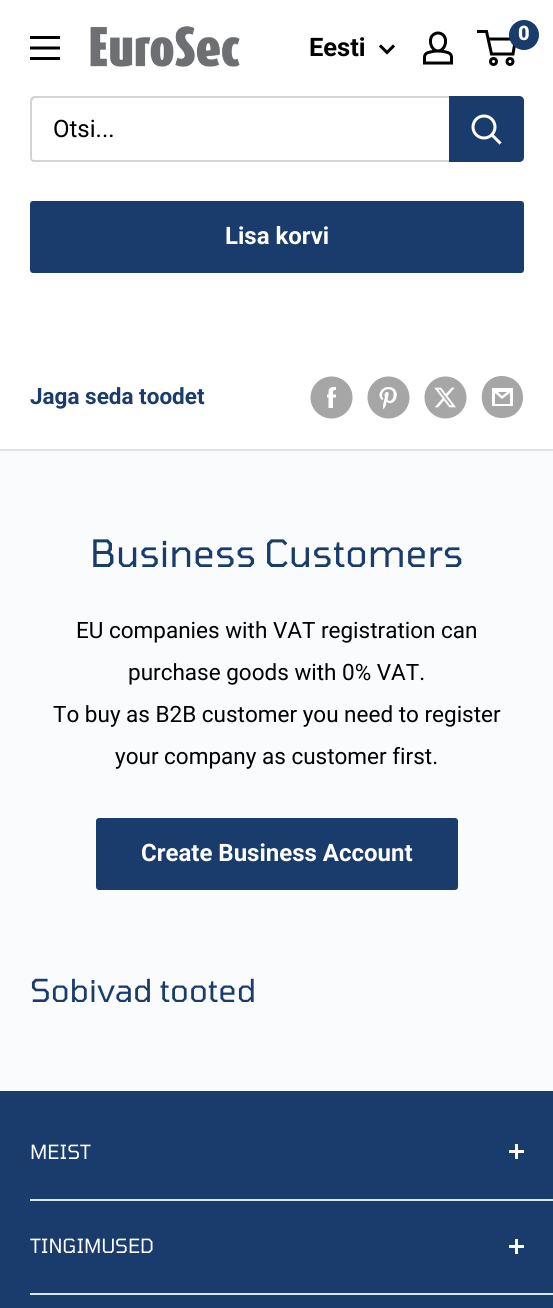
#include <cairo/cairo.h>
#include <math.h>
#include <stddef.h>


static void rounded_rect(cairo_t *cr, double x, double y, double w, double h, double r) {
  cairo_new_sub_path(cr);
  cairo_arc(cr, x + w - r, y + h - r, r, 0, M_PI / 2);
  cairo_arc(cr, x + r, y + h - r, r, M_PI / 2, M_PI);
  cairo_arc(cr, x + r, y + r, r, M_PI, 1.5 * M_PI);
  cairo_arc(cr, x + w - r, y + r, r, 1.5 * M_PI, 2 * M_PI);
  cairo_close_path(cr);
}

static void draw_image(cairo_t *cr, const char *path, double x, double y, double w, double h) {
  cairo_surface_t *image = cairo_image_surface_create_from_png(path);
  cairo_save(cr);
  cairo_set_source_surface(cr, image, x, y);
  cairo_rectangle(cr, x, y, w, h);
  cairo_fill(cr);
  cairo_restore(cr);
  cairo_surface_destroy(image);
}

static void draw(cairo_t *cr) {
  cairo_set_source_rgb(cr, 249 / 255.0, 251 / 255.0, 252 / 255.0);
  cairo_paint(cr);
  cairo_set_source_rgb(cr, 1, 1, 1);
  cairo_rectangle(cr, 0, 0, 553, 449);
  cairo_fill(cr);
  draw_image(cr, "images/1.png", 30, 36, 30, 24);
  draw_image(cr, "images/2.png", 90, 26, 150, 41);
  cairo_new_path(cr);
  cairo_move_to(cr, 393, 46.5);
  cairo_line_to(cr, 387, 52.5);
  cairo_line_to(cr, 381, 46.5);
  cairo_set_source_rgb(cr, 0, 0, 0);
  cairo_set_line_width(cr, 3);
  cairo_set_line_cap(cr, CAIRO_LINE_CAP_SQUARE);
  cairo_stroke(cr);
  draw_image(cr, "images/3.png", 423, 31, 30, 34);
  cairo_arc(cr, 493.5, 61.5, 3, 0, 2 * M_PI);
  cairo_set_line_cap(cr, CAIRO_LINE_CAP_BUTT);
  cairo_stroke(cr);
  cairo_arc(cr, 510, 61.5, 3, 0, 2 * M_PI);
  cairo_stroke(cr);
  cairo_new_path(cr);
  cairo_move_to(cr, 488, 39);
  cairo_line_to(cr, 515.5, 39);
  cairo_line_to(cr, 513, 54);
  cairo_line_to(cr, 491.5, 54);
  cairo_line_to(cr, 486.5, 31.5);
  cairo_line_to(cr, 477, 31.5);
  cairo_stroke(cr);
  cairo_set_source_rgb(cr, 25 / 255.0, 60 / 255.0, 109 / 255.0);
  cairo_arc(cr, 524, 35, 15, 0, 2 * M_PI);
  cairo_fill(cr);
  cairo_set_source_rgb(cr, 209 / 255.0, 213 / 255.0, 215 / 255.0);
  cairo_new_path(cr);
  cairo_move_to(cr, 31, 159);
  cairo_curve_to(cr, 31, 161, 33, 162, 35, 162);
  cairo_line_to(cr, 519, 162);
  cairo_curve_to(cr, 522, 162, 524, 160, 524, 157);
  cairo_line_to(cr, 524, 101);
  cairo_curve_to(cr, 524, 99, 523, 97, 521, 97);
  cairo_line_to(cr, 522, 99);
  cairo_line_to(cr, 522, 156);
  cairo_curve_to(cr, 522, 158, 520, 160, 518, 160);
  cairo_line_to(cr, 33, 160);
  cairo_close_path(cr);
  cairo_fill(cr);
  cairo_set_source_rgba(cr, 103 / 255.0, 114 / 255.0, 121 / 255.0, 0.3);
  cairo_new_path(cr);
  cairo_move_to(cr, 36, 98);
  cairo_line_to(cr, 520, 98);
  cairo_curve_to(cr, 522, 98, 523, 99, 524, 99);
  cairo_curve_to(cr, 523, 97, 521, 96, 519, 96);
  cairo_line_to(cr, 35, 96);
  cairo_curve_to(cr, 32, 96, 30, 98, 30, 101);
  cairo_line_to(cr, 30, 157);
  cairo_curve_to(cr, 30, 159, 31, 161, 33, 161);
  cairo_line_to(cr, 32, 159);
  cairo_line_to(cr, 32, 102);
  cairo_curve_to(cr, 32, 100, 34, 98, 36, 98);
  cairo_close_path(cr);
  cairo_fill(cr);
  cairo_set_source_rgb(cr, 25 / 255.0, 60 / 255.0, 109 / 255.0);
  cairo_new_path(cr);
  cairo_move_to(cr, 449, 96);
  cairo_line_to(cr, 519, 96);
  cairo_curve_to(cr, 522, 96, 524, 98, 524, 101);
  cairo_line_to(cr, 524, 157);
  cairo_curve_to(cr, 524, 160, 522, 162, 519, 162);
  cairo_line_to(cr, 449, 162);
  cairo_close_path(cr);
  cairo_fill(cr);
  cairo_new_path(cr);
  cairo_move_to(cr, 499.5, 142.5);
  cairo_line_to(cr, 492, 135);
  cairo_set_source_rgb(cr, 1, 1, 1);
  cairo_set_line_cap(cr, CAIRO_LINE_CAP_SQUARE);
  cairo_stroke(cr);
  cairo_arc(cr, 484, 127, 11, 0, 2 * M_PI);
  cairo_set_line_cap(cr, CAIRO_LINE_CAP_BUTT);
  cairo_stroke(cr);
  cairo_set_source_rgb(cr, 225 / 255.0, 227 / 255.0, 228 / 255.0);
  cairo_rectangle(cr, 0, 449, 553, 2);
  cairo_fill(cr);
  cairo_set_source_rgb(cr, 25 / 255.0, 60 / 255.0, 109 / 255.0);
  rounded_rect(cr, 30, 201, 494, 72, 3);
  cairo_fill(cr);
  draw_image(cr, "images/4.png", 310, 376, 43, 43);
  draw_image(cr, "images/5.png", 367, 376, 43, 43);
  draw_image(cr, "images/6.png", 424, 376, 43, 43);
  cairo_set_source_rgb(cr, 166 / 255.0, 166 / 255.0, 166 / 255.0);
  cairo_new_path(cr);
  cairo_move_to(cr, 502, 418);
  cairo_curve_to(cr, 475, 418, 475, 376, 502, 376);
  cairo_curve_to(cr, 530, 377, 530, 418, 502, 418);
  cairo_close_path(cr);
  cairo_move_to(cr, 498, 392);
  cairo_line_to(cr, 507, 392);
  cairo_line_to(cr, 502, 396);
  cairo_close_path(cr);
  cairo_move_to(cr, 510, 393);
  cairo_line_to(cr, 510, 404);
  cairo_line_to(cr, 495, 404);
  cairo_line_to(cr, 495, 393);
  cairo_line_to(cr, 502, 399);
  cairo_close_path(cr);
  cairo_move_to(cr, 513, 388);
  cairo_line_to(cr, 492, 388);
  cairo_line_to(cr, 492, 406);
  cairo_line_to(cr, 513, 406);
  cairo_close_path(cr);
  cairo_fill(cr);
  cairo_set_source_rgb(cr, 25 / 255.0, 60 / 255.0, 109 / 255.0);
  rounded_rect(cr, 96, 818, 362, 72, 3);
  cairo_fill(cr);
  cairo_rectangle(cr, 0, 1091, 553, 217);
  cairo_fill(cr);
  cairo_set_source_rgb(cr, 225 / 255.0, 227 / 255.0, 228 / 255.0);
  cairo_rectangle(cr, 30, 1199, 523, 2);
  cairo_fill(cr);
  cairo_set_source_rgb(cr, 1, 1, 1);
  cairo_rectangle(cr, 515, 1144, 3, 15);
  cairo_fill(cr);
  cairo_rectangle(cr, 509, 1150, 15, 3);
  cairo_fill(cr);
  cairo_set_source_rgb(cr, 225 / 255.0, 227 / 255.0, 228 / 255.0);
  cairo_rectangle(cr, 30, 1293, 523, 2);
  cairo_fill(cr);
  cairo_set_source_rgb(cr, 1, 1, 1);
  cairo_rectangle(cr, 515, 1239, 3, 15);
  cairo_fill(cr);
  cairo_rectangle(cr, 509, 1245, 15, 3);
  cairo_fill(cr);
  cairo_select_font_face(cr, "Roboto", CAIRO_FONT_SLANT_NORMAL, CAIRO_FONT_WEIGHT_BOLD);
  cairo_set_font_size(cr, 25.5);
  cairo_set_source_rgb(cr, 0, 0, 0);
  cairo_move_to(cr, 309, 56);
  cairo_show_text(cr, "Eesti");
  cairo_select_font_face(cr, "Roboto Black", CAIRO_FONT_SLANT_NORMAL, CAIRO_FONT_WEIGHT_NORMAL);
  cairo_set_font_size(cr, 20);
  cairo_set_source_rgb(cr, 1, 1, 1);
  cairo_move_to(cr, 518, 40);
  cairo_show_text(cr, "0");
  cairo_select_font_face(cr, "Roboto", CAIRO_FONT_SLANT_NORMAL, CAIRO_FONT_WEIGHT_NORMAL);
  cairo_set_font_size(cr, 24);
  cairo_set_source_rgb(cr, 0, 0, 0);
  cairo_move_to(cr, 53, 137);
  cairo_show_text(cr, "Otsi...");
  cairo_select_font_face(cr, "Roboto", CAIRO_FONT_SLANT_NORMAL, CAIRO_FONT_WEIGHT_BOLD);
  cairo_set_source_rgb(cr, 1, 1, 1);
  cairo_move_to(cr, 225, 244);
  cairo_show_text(cr, "Lisa korvi");
  cairo_set_font_size(cr, 22.5);
  cairo_set_source_rgb(cr, 25 / 255.0, 60 / 255.0, 109 / 255.0);
  cairo_move_to(cr, 30, 404);
  cairo_show_text(cr, "Jaga seda toodet");
  cairo_select_font_face(cr, "Tomorrow", CAIRO_FONT_SLANT_NORMAL, CAIRO_FONT_WEIGHT_NORMAL);
  cairo_set_font_size(cr, 37.5);
  cairo_move_to(cr, 90, 567);
  cairo_show_text(cr, "Business Customers");
  cairo_select_font_face(cr, "Roboto", CAIRO_FONT_SLANT_NORMAL, CAIRO_FONT_WEIGHT_NORMAL);
  cairo_set_font_size(cr, 22.5);
  cairo_set_source_rgb(cr, 0, 0, 0);
  cairo_move_to(cr, 76, 638);
  cairo_show_text(cr, "EU companies with VAT registration can");
  cairo_move_to(cr, 128, 680);
  cairo_show_text(cr, "purchase goods with 0% VAT.");
  cairo_move_to(cr, 53, 722);
  cairo_show_text(cr, "To buy as B2B customer you need to register");
  cairo_move_to(cr, 115, 764);
  cairo_show_text(cr, "your company as customer first.");
  cairo_select_font_face(cr, "Roboto", CAIRO_FONT_SLANT_NORMAL, CAIRO_FONT_WEIGHT_BOLD);
  cairo_set_font_size(cr, 24);
  cairo_set_source_rgb(cr, 1, 1, 1);
  cairo_move_to(cr, 141, 861);
  cairo_show_text(cr, "Create Business Account");
  cairo_select_font_face(cr, "Tomorrow", CAIRO_FONT_SLANT_NORMAL, CAIRO_FONT_WEIGHT_NORMAL);
  cairo_set_font_size(cr, 31.5);
  cairo_set_source_rgb(cr, 25 / 255.0, 60 / 255.0, 109 / 255.0);
  cairo_move_to(cr, 30, 1002);
  cairo_show_text(cr, "Sobivad tooted");
  cairo_set_font_size(cr, 19.5);
  cairo_set_source_rgb(cr, 1, 1, 1);
  cairo_move_to(cr, 30, 1159);
  cairo_show_text(cr, "MEIST");
  cairo_move_to(cr, 30, 1253);
  cairo_show_text(cr, "TINGIMUSED");
}

int main(void) {
  cairo_surface_t *surface = cairo_image_surface_create(CAIRO_FORMAT_RGB24, 553, 1308);
  cairo_t *cr = cairo_create(surface);
  cairo_font_options_t *options = cairo_font_options_create();
  cairo_font_options_set_hint_metrics(options, CAIRO_HINT_METRICS_OFF);
  cairo_font_options_set_hint_style(options, CAIRO_HINT_STYLE_NONE);
  cairo_set_font_options(cr, options);
  cairo_set_miter_limit(cr, 4);
  draw(cr);
  cairo_surface_write_to_png(surface, "out.png");
  cairo_font_options_destroy(options);
  cairo_destroy(cr);
  cairo_surface_destroy(surface);
  return 0;
}
